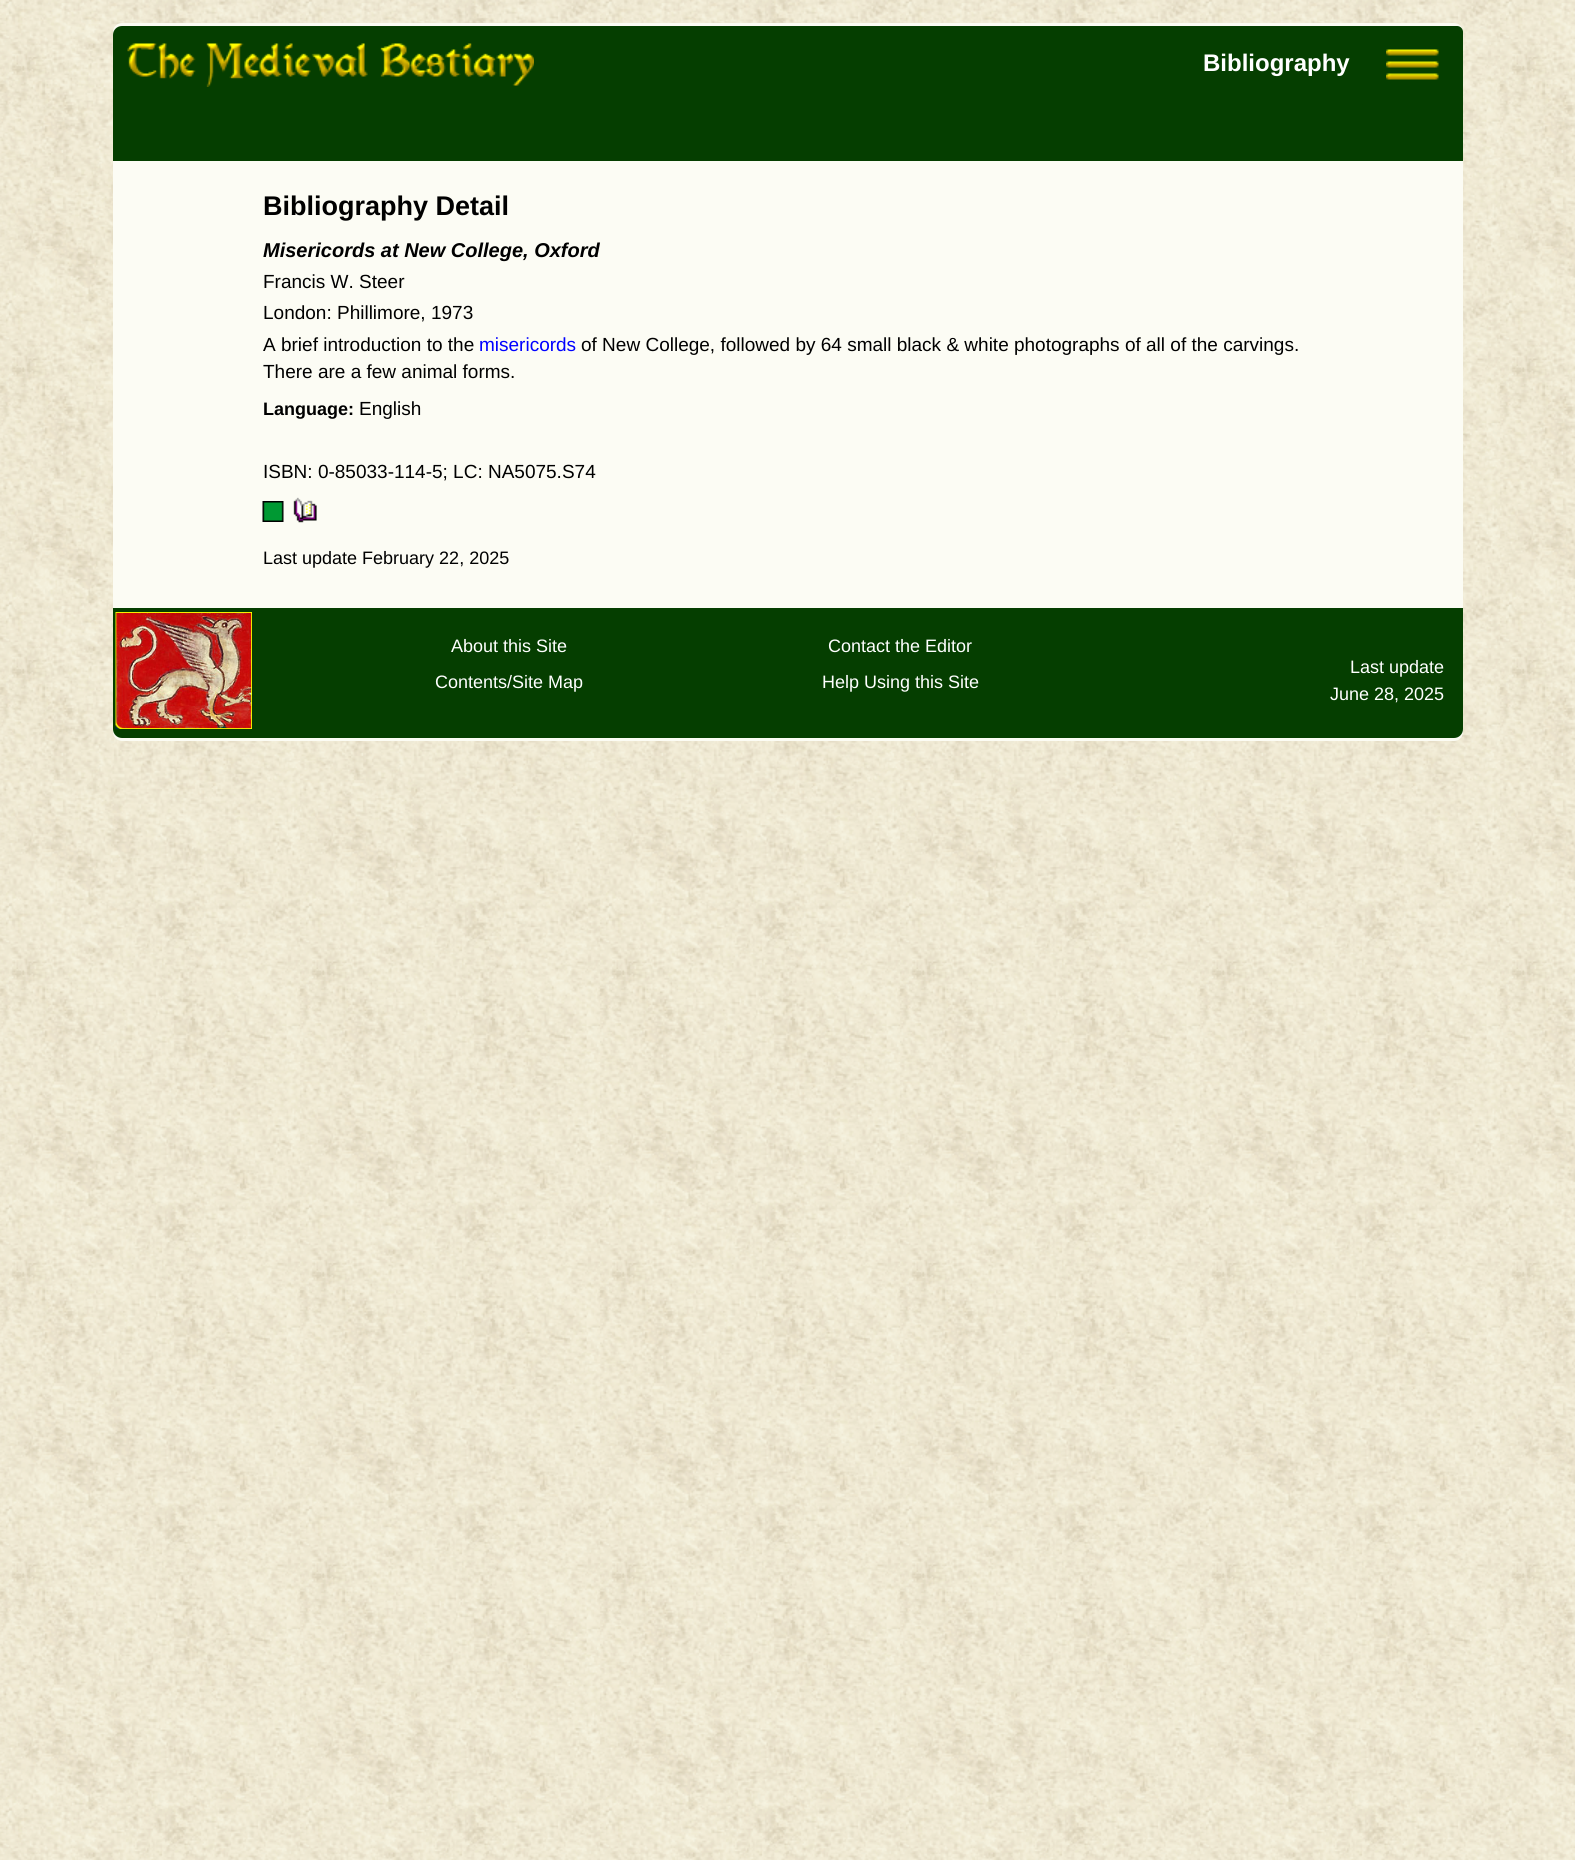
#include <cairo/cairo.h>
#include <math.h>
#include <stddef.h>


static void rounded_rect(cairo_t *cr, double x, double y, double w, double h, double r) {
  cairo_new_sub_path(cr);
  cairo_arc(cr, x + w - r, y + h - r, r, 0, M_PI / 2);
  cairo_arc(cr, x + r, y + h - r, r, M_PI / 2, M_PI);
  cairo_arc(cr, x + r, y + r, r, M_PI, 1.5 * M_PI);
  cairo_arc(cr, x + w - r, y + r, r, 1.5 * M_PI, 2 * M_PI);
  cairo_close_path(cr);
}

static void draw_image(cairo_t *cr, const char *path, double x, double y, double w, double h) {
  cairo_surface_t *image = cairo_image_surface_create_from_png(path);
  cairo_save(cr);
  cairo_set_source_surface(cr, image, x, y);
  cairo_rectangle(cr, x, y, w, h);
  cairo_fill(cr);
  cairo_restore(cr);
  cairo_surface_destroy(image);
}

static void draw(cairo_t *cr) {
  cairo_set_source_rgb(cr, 1, 1, 1);
  cairo_paint(cr);
  draw_image(cr, "images/1.png", 0, 0, 1575, 1860);
  cairo_set_source_rgb(cr, 252 / 255.0, 252 / 255.0, 244 / 255.0);
  rounded_rect(cr, 113, 23, 1350, 718, 9);
  cairo_fill(cr);
  cairo_set_source_rgb(cr, 5 / 255.0, 62 / 255.0, 0);
  cairo_new_path(cr);
  cairo_move_to(cr, 122, 26);
  cairo_line_to(cr, 1454, 26);
  cairo_curve_to(cr, 1459, 26, 1463, 30, 1463, 35);
  cairo_line_to(cr, 1463, 161);
  cairo_line_to(cr, 113, 161);
  cairo_line_to(cr, 113, 35);
  cairo_curve_to(cr, 113, 30, 117, 26, 122, 26);
  cairo_close_path(cr);
  cairo_fill(cr);
  draw_image(cr, "images/2.png", 127, 43, 407, 44);
  rounded_rect(cr, 1362, 26, 101, 82, 6);
  cairo_fill(cr);
  draw_image(cr, "images/3.png", 1386, 49, 53, 31);
  draw_image(cr, "images/4.png", 262, 501, 22, 21);
  draw_image(cr, "images/5.png", 293, 497, 24, 26);
  cairo_new_path(cr);
  cairo_move_to(cr, 113, 608);
  cairo_line_to(cr, 1463, 608);
  cairo_line_to(cr, 1463, 729);
  cairo_curve_to(cr, 1463, 734, 1459, 738, 1454, 738);
  cairo_line_to(cr, 122, 738);
  cairo_curve_to(cr, 117, 738, 113, 734, 113, 729);
  cairo_close_path(cr);
  cairo_fill(cr);
  draw_image(cr, "images/6.png", 115, 612, 137, 117);
  cairo_select_font_face(cr, "Liberation Sans", CAIRO_FONT_SLANT_NORMAL, CAIRO_FONT_WEIGHT_BOLD);
  cairo_set_font_size(cr, 24);
  cairo_set_source_rgb(cr, 1, 1, 1);
  cairo_move_to(cr, 1203, 71);
  cairo_show_text(cr, "Bibliography");
  cairo_set_font_size(cr, 27);
  cairo_set_source_rgb(cr, 0, 0, 0);
  cairo_move_to(cr, 263, 215);
  cairo_show_text(cr, "Bibliography Detail");
  cairo_select_font_face(cr, "Liberation Sans", CAIRO_FONT_SLANT_ITALIC, CAIRO_FONT_WEIGHT_BOLD);
  cairo_set_font_size(cr, 20);
  cairo_move_to(cr, 263, 257);
  cairo_show_text(cr, "Misericords at New College, Oxford");
  cairo_select_font_face(cr, "Liberation Sans", CAIRO_FONT_SLANT_NORMAL, CAIRO_FONT_WEIGHT_NORMAL);
  cairo_set_font_size(cr, 19);
  cairo_move_to(cr, 263, 288);
  cairo_show_text(cr, "Francis W. Steer");
  cairo_move_to(cr, 263, 319);
  cairo_show_text(cr, "London: Phillimore, 1973");
  cairo_move_to(cr, 263, 351);
  cairo_show_text(cr, "A brief introduction to the");
  cairo_set_source_rgb(cr, 0, 0, 1);
  cairo_move_to(cr, 479, 351);
  cairo_show_text(cr, "misericords");
  cairo_set_source_rgb(cr, 0, 0, 0);
  cairo_move_to(cr, 581, 351);
  cairo_show_text(cr, "of New College, followed by 64 small black & white photographs of all of the carvings.");
  cairo_move_to(cr, 263, 378);
  cairo_show_text(cr, "There are a few animal forms.");
  cairo_select_font_face(cr, "Liberation Sans", CAIRO_FONT_SLANT_NORMAL, CAIRO_FONT_WEIGHT_BOLD);
  cairo_set_font_size(cr, 18);
  cairo_move_to(cr, 263, 415);
  cairo_show_text(cr, "Language:");
  cairo_select_font_face(cr, "Liberation Sans", CAIRO_FONT_SLANT_NORMAL, CAIRO_FONT_WEIGHT_NORMAL);
  cairo_set_font_size(cr, 19);
  cairo_move_to(cr, 359, 415);
  cairo_show_text(cr, "English");
  cairo_move_to(cr, 263, 478);
  cairo_show_text(cr, "ISBN: 0-85033-114-5; LC: NA5075.S74");
  cairo_set_font_size(cr, 18);
  cairo_move_to(cr, 263, 564);
  cairo_show_text(cr, "Last update February 22, 2025");
  cairo_set_source_rgb(cr, 1, 1, 1);
  cairo_move_to(cr, 451, 652);
  cairo_show_text(cr, "About this Site");
  cairo_move_to(cr, 435, 688);
  cairo_show_text(cr, "Contents/Site Map");
  cairo_move_to(cr, 828, 652);
  cairo_show_text(cr, "Contact the Editor");
  cairo_move_to(cr, 822, 688);
  cairo_show_text(cr, "Help Using this Site");
  cairo_move_to(cr, 1350, 673);
  cairo_show_text(cr, "Last update");
  cairo_move_to(cr, 1330, 700);
  cairo_show_text(cr, "June 28, 2025");
}

int main(void) {
  cairo_surface_t *surface = cairo_image_surface_create(CAIRO_FORMAT_RGB24, 1575, 1860);
  cairo_t *cr = cairo_create(surface);
  cairo_font_options_t *options = cairo_font_options_create();
  cairo_font_options_set_hint_metrics(options, CAIRO_HINT_METRICS_OFF);
  cairo_font_options_set_hint_style(options, CAIRO_HINT_STYLE_NONE);
  cairo_set_font_options(cr, options);
  cairo_set_miter_limit(cr, 4);
  draw(cr);
  cairo_surface_write_to_png(surface, "out.png");
  cairo_font_options_destroy(options);
  cairo_destroy(cr);
  cairo_surface_destroy(surface);
  return 0;
}
